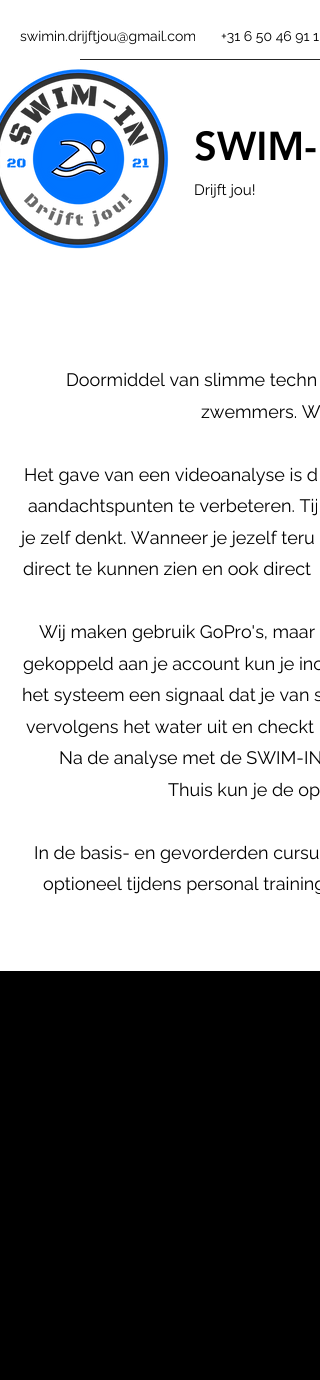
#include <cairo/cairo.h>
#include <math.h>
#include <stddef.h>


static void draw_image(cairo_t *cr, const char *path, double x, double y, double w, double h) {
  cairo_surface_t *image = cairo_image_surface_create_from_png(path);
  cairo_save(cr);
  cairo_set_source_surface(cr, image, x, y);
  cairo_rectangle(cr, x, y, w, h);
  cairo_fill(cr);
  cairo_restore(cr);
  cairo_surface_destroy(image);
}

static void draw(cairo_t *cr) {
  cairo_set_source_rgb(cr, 1, 1, 1);
  cairo_paint(cr);
  cairo_set_source_rgb(cr, 38 / 255.0, 38 / 255.0, 38 / 255.0);
  cairo_rectangle(cr, 80, 59, 240, 1);
  cairo_fill(cr);
  draw_image(cr, "images/1.png", 0, 69, 169, 180);
  cairo_set_source_rgb(cr, 0, 0, 0);
  cairo_rectangle(cr, 0, 971, 320, 409);
  cairo_fill(cr);
  cairo_select_font_face(cr, "Raleway", CAIRO_FONT_SLANT_NORMAL, CAIRO_FONT_WEIGHT_NORMAL);
  cairo_set_font_size(cr, 14);
  cairo_move_to(cr, 20, 41);
  cairo_show_text(cr, "swimin.drijftjou@gmail.com");
  cairo_move_to(cr, 221, 41);
  cairo_show_text(cr, "+31 6 50 46 91 1");
  cairo_select_font_face(cr, "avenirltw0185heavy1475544 Black", CAIRO_FONT_SLANT_NORMAL, CAIRO_FONT_WEIGHT_NORMAL);
  cairo_set_font_size(cr, 40);
  cairo_move_to(cr, 194, 160);
  cairo_show_text(cr, "SWIM-");
  cairo_select_font_face(cr, "Raleway", CAIRO_FONT_SLANT_NORMAL, CAIRO_FONT_WEIGHT_NORMAL);
  cairo_set_font_size(cr, 15);
  cairo_move_to(cr, 194, 195);
  cairo_show_text(cr, "Drijft jou!");
  cairo_set_font_size(cr, 18);
  cairo_move_to(cr, 66, 386);
  cairo_show_text(cr, "Doormiddel van slimme techn");
  cairo_move_to(cr, 201, 418);
  cairo_show_text(cr, "zwemmers. W");
  cairo_move_to(cr, 24, 481);
  cairo_show_text(cr, "Het gave van een videoanalyse is d");
  cairo_move_to(cr, 28, 512);
  cairo_show_text(cr, "aandachtspunten te verbeteren. Tij");
  cairo_move_to(cr, 21, 544);
  cairo_show_text(cr, "je zelf denkt. Wanneer je jezelf teru");
  cairo_move_to(cr, 23, 575);
  cairo_show_text(cr, "direct te kunnen zien en ook direct");
  cairo_move_to(cr, 39, 638);
  cairo_show_text(cr, "Wij maken gebruik GoPro's, maar");
  cairo_move_to(cr, 23, 670);
  cairo_show_text(cr, "gekoppeld aan je account kun je inc");
  cairo_move_to(cr, 22, 701);
  cairo_show_text(cr, "het systeem een signaal dat je van s");
  cairo_move_to(cr, 26, 733);
  cairo_show_text(cr, "vervolgens het water uit en checkt");
  cairo_move_to(cr, 59, 764);
  cairo_show_text(cr, "Na de analyse met de SWIM-IN");
  cairo_move_to(cr, 168, 796);
  cairo_show_text(cr, "Thuis kun je de op");
  cairo_move_to(cr, 34, 859);
  cairo_show_text(cr, "In de basis- en gevorderden cursu");
  cairo_move_to(cr, 43, 890);
  cairo_show_text(cr, "optioneel tijdens personal training");
}

int main(void) {
  cairo_surface_t *surface = cairo_image_surface_create(CAIRO_FORMAT_RGB24, 320, 1380);
  cairo_t *cr = cairo_create(surface);
  cairo_font_options_t *options = cairo_font_options_create();
  cairo_font_options_set_hint_metrics(options, CAIRO_HINT_METRICS_OFF);
  cairo_font_options_set_hint_style(options, CAIRO_HINT_STYLE_NONE);
  cairo_set_font_options(cr, options);
  cairo_set_miter_limit(cr, 4);
  draw(cr);
  cairo_surface_write_to_png(surface, "out.png");
  cairo_font_options_destroy(options);
  cairo_destroy(cr);
  cairo_surface_destroy(surface);
  return 0;
}
